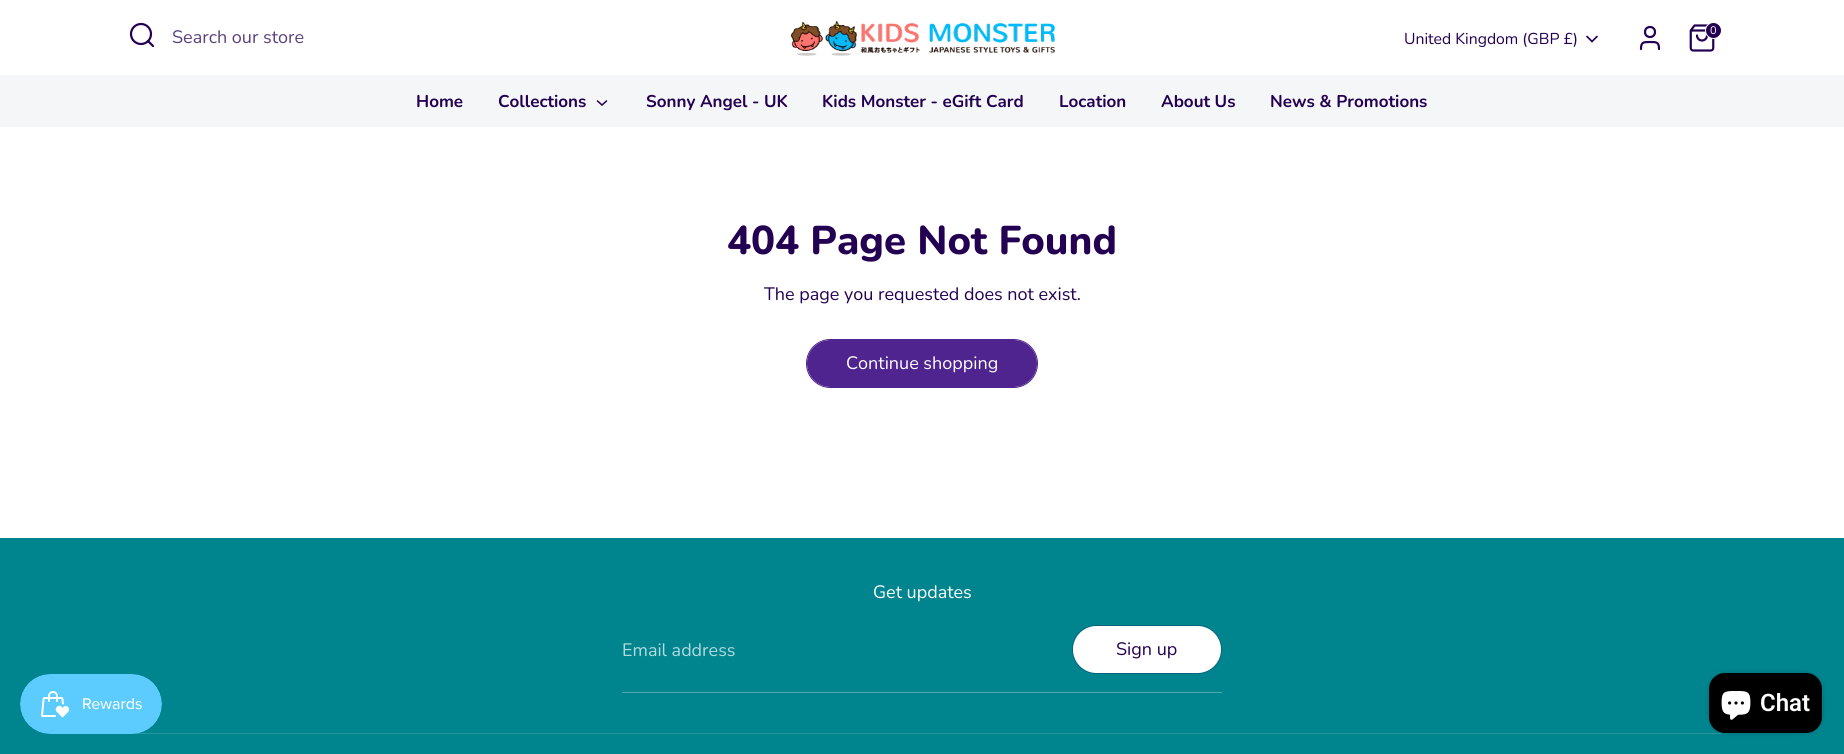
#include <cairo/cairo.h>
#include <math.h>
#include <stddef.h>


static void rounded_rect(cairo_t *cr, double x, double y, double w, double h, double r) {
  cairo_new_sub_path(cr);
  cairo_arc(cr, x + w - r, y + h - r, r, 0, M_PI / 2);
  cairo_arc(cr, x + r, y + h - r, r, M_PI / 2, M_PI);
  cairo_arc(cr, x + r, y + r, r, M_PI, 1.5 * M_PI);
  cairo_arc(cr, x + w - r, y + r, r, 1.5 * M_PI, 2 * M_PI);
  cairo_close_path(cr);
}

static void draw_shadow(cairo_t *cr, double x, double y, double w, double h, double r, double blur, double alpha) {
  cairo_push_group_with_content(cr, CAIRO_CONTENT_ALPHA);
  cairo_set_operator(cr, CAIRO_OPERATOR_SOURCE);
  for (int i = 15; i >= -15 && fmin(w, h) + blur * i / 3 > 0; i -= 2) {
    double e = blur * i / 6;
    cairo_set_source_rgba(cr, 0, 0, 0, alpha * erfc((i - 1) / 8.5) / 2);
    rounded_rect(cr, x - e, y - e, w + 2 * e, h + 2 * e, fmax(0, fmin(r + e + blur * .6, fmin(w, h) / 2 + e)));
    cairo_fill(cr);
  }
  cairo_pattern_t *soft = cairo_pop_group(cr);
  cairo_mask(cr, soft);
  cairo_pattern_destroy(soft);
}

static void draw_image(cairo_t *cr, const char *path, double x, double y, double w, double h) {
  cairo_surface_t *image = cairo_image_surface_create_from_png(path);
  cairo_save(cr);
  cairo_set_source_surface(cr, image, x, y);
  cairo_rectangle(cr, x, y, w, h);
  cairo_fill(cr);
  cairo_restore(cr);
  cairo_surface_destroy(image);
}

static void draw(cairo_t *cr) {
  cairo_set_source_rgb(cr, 1, 1, 1);
  cairo_paint(cr);
  cairo_arc(cr, 141, 34, 10, 0, 2 * M_PI);
  cairo_set_source_rgb(cr, 35 / 255.0, 0, 81 / 255.0);
  cairo_set_line_width(cr, 2.2);
  cairo_stroke(cr);
  cairo_new_path(cr);
  cairo_move_to(cr, 153, 46);
  cairo_line_to(cr, 148, 41);
  cairo_set_line_cap(cr, CAIRO_LINE_CAP_ROUND);
  cairo_set_line_join(cr, CAIRO_LINE_JOIN_ROUND);
  cairo_stroke(cr);
  draw_image(cr, "images/1.png", 791, 21, 264, 35);
  cairo_new_path(cr);
  cairo_move_to(cr, 1659, 49);
  cairo_curve_to(cr, 1659, 42, 1656.5, 42, 1650, 42);
  cairo_curve_to(cr, 1643.5, 42, 1641, 42, 1641, 49);
  cairo_stroke(cr);
  cairo_arc(cr, 1650, 32, 5, 0, 2 * M_PI);
  cairo_set_line_cap(cr, CAIRO_LINE_CAP_BUTT);
  cairo_set_line_join(cr, CAIRO_LINE_JOIN_MITER);
  cairo_stroke(cr);
  draw_image(cr, "images/2.png", 1689, 24, 26, 28);
  cairo_arc(cr, 1713.5, 30.5, 8, 0, 2 * M_PI);
  cairo_fill_preserve(cr);
  cairo_set_source_rgb(cr, 1, 1, 1);
  cairo_set_line_width(cr, 1);
  cairo_stroke(cr);
  cairo_new_path(cr);
  cairo_move_to(cr, 1587, 36.5);
  cairo_line_to(cr, 1592, 41.5);
  cairo_line_to(cr, 1597, 36.5);
  cairo_set_source_rgb(cr, 35 / 255.0, 0, 81 / 255.0);
  cairo_set_line_width(cr, 1.7);
  cairo_set_line_cap(cr, CAIRO_LINE_CAP_ROUND);
  cairo_stroke(cr);
  cairo_set_source_rgb(cr, 244 / 255.0, 246 / 255.0, 248 / 255.0);
  cairo_rectangle(cr, 0, 75, 1844, 52);
  cairo_fill(cr);
  cairo_new_path(cr);
  cairo_move_to(cr, 597.5, 101);
  cairo_line_to(cr, 602, 105);
  cairo_line_to(cr, 606.5, 101);
  cairo_set_source_rgb(cr, 35 / 255.0, 0, 81 / 255.0);
  cairo_set_line_width(cr, 1.5);
  cairo_stroke(cr);
  rounded_rect(cr, 806.5, 339.5, 231, 48, 24);
  cairo_set_source_rgb(cr, 80 / 255.0, 36 / 255.0, 143 / 255.0);
  cairo_set_line_width(cr, 1);
  cairo_set_line_cap(cr, CAIRO_LINE_CAP_BUTT);
  cairo_stroke(cr);
  rounded_rect(cr, 807, 340, 230, 47, 23.5);
  cairo_fill(cr);
  cairo_set_source_rgb(cr, 0, 132 / 255.0, 142 / 255.0);
  cairo_rectangle(cr, 0, 538, 1844, 216);
  cairo_fill(cr);
  cairo_set_source_rgb(cr, 77 / 255.0, 169 / 255.0, 176 / 255.0);
  cairo_rectangle(cr, 622, 692, 600, 1);
  cairo_fill(cr);
  rounded_rect(cr, 1072.5, 625.5, 149, 48, 24);
  cairo_set_source_rgb(cr, 9 / 255.0, 99 / 255.0, 127 / 255.0);
  cairo_stroke(cr);
  cairo_set_source_rgb(cr, 1, 1, 1);
  rounded_rect(cr, 1073, 626, 148, 47, 23.5);
  cairo_fill(cr);
  cairo_set_source_rgb(cr, 38 / 255.0, 150 / 255.0, 159 / 255.0);
  cairo_rectangle(cr, 132, 733, 1590, 1);
  cairo_fill(cr);
  draw_image(cr, "images/3.png", 20, 674, 142, 60);
  cairo_set_source_rgb(cr, 0, 0, 0);
  draw_shadow(cr, 1709, 673, 113, 60, 16, 2.5, 0.15);
  cairo_set_source_rgb(cr, 0, 0, 0);
  rounded_rect(cr, 1709, 673, 113, 60, 16);
  cairo_fill(cr);
  draw_image(cr, "images/4.png", 1721, 691, 30, 29);
  cairo_select_font_face(cr, "Nunito", CAIRO_FONT_SLANT_NORMAL, CAIRO_FONT_WEIGHT_NORMAL);
  cairo_set_font_size(cr, 18);
  cairo_set_source_rgb(cr, 90 / 255.0, 64 / 255.0, 125 / 255.0);
  cairo_move_to(cr, 172, 43);
  cairo_show_text(cr, "Search our store");
  cairo_set_font_size(cr, 11);
  cairo_set_source_rgb(cr, 1, 1, 1);
  cairo_move_to(cr, 1710, 34);
  cairo_show_text(cr, "0");
  cairo_set_font_size(cr, 15.75);
  cairo_set_source_rgb(cr, 35 / 255.0, 0, 81 / 255.0);
  cairo_move_to(cr, 1404, 44);
  cairo_show_text(cr, "United Kingdom (GBP £)");
  cairo_select_font_face(cr, "Nunito", CAIRO_FONT_SLANT_NORMAL, CAIRO_FONT_WEIGHT_BOLD);
  cairo_set_font_size(cr, 17);
  cairo_move_to(cr, 416, 107);
  cairo_show_text(cr, "Home");
  cairo_move_to(cr, 498, 107);
  cairo_show_text(cr, "Collections");
  cairo_move_to(cr, 646, 107);
  cairo_show_text(cr, "Sonny Angel - UK");
  cairo_move_to(cr, 822, 107);
  cairo_show_text(cr, "Kids Monster - eGift Card");
  cairo_move_to(cr, 1059, 107);
  cairo_show_text(cr, "Location");
  cairo_move_to(cr, 1161, 107);
  cairo_show_text(cr, "About Us");
  cairo_move_to(cr, 1270, 107);
  cairo_show_text(cr, "News & Promotions");
  cairo_select_font_face(cr, "Nunito ExtraBold", CAIRO_FONT_SLANT_NORMAL, CAIRO_FONT_WEIGHT_NORMAL);
  cairo_set_font_size(cr, 40.1);
  cairo_move_to(cr, 727, 254);
  cairo_show_text(cr, "404 Page Not Found");
  cairo_select_font_face(cr, "Nunito", CAIRO_FONT_SLANT_NORMAL, CAIRO_FONT_WEIGHT_NORMAL);
  cairo_set_font_size(cr, 18);
  cairo_move_to(cr, 764, 300);
  cairo_show_text(cr, "The page you requested does not exist.");
  cairo_set_source_rgb(cr, 1, 1, 1);
  cairo_move_to(cr, 846, 369);
  cairo_show_text(cr, "Continue shopping");
  cairo_move_to(cr, 873, 598);
  cairo_show_text(cr, "Get updates");
  cairo_set_source_rgb(cr, 179 / 255.0, 218 / 255.0, 221 / 255.0);
  cairo_move_to(cr, 622, 656);
  cairo_show_text(cr, "Email address");
  cairo_set_source_rgb(cr, 35 / 255.0, 0, 81 / 255.0);
  cairo_move_to(cr, 1116, 655);
  cairo_show_text(cr, "Sign up");
  cairo_select_font_face(cr, "Roboto SemiBold", CAIRO_FONT_SLANT_NORMAL, CAIRO_FONT_WEIGHT_NORMAL);
  cairo_set_font_size(cr, 24);
  cairo_set_source_rgb(cr, 1, 1, 1);
  cairo_move_to(cr, 1760, 711);
  cairo_show_text(cr, "Chat");
}

int main(void) {
  cairo_surface_t *surface = cairo_image_surface_create(CAIRO_FORMAT_RGB24, 1844, 754);
  cairo_t *cr = cairo_create(surface);
  cairo_font_options_t *options = cairo_font_options_create();
  cairo_font_options_set_hint_metrics(options, CAIRO_HINT_METRICS_OFF);
  cairo_font_options_set_hint_style(options, CAIRO_HINT_STYLE_NONE);
  cairo_set_font_options(cr, options);
  cairo_set_miter_limit(cr, 4);
  draw(cr);
  cairo_surface_write_to_png(surface, "out.png");
  cairo_font_options_destroy(options);
  cairo_destroy(cr);
  cairo_surface_destroy(surface);
  return 0;
}
